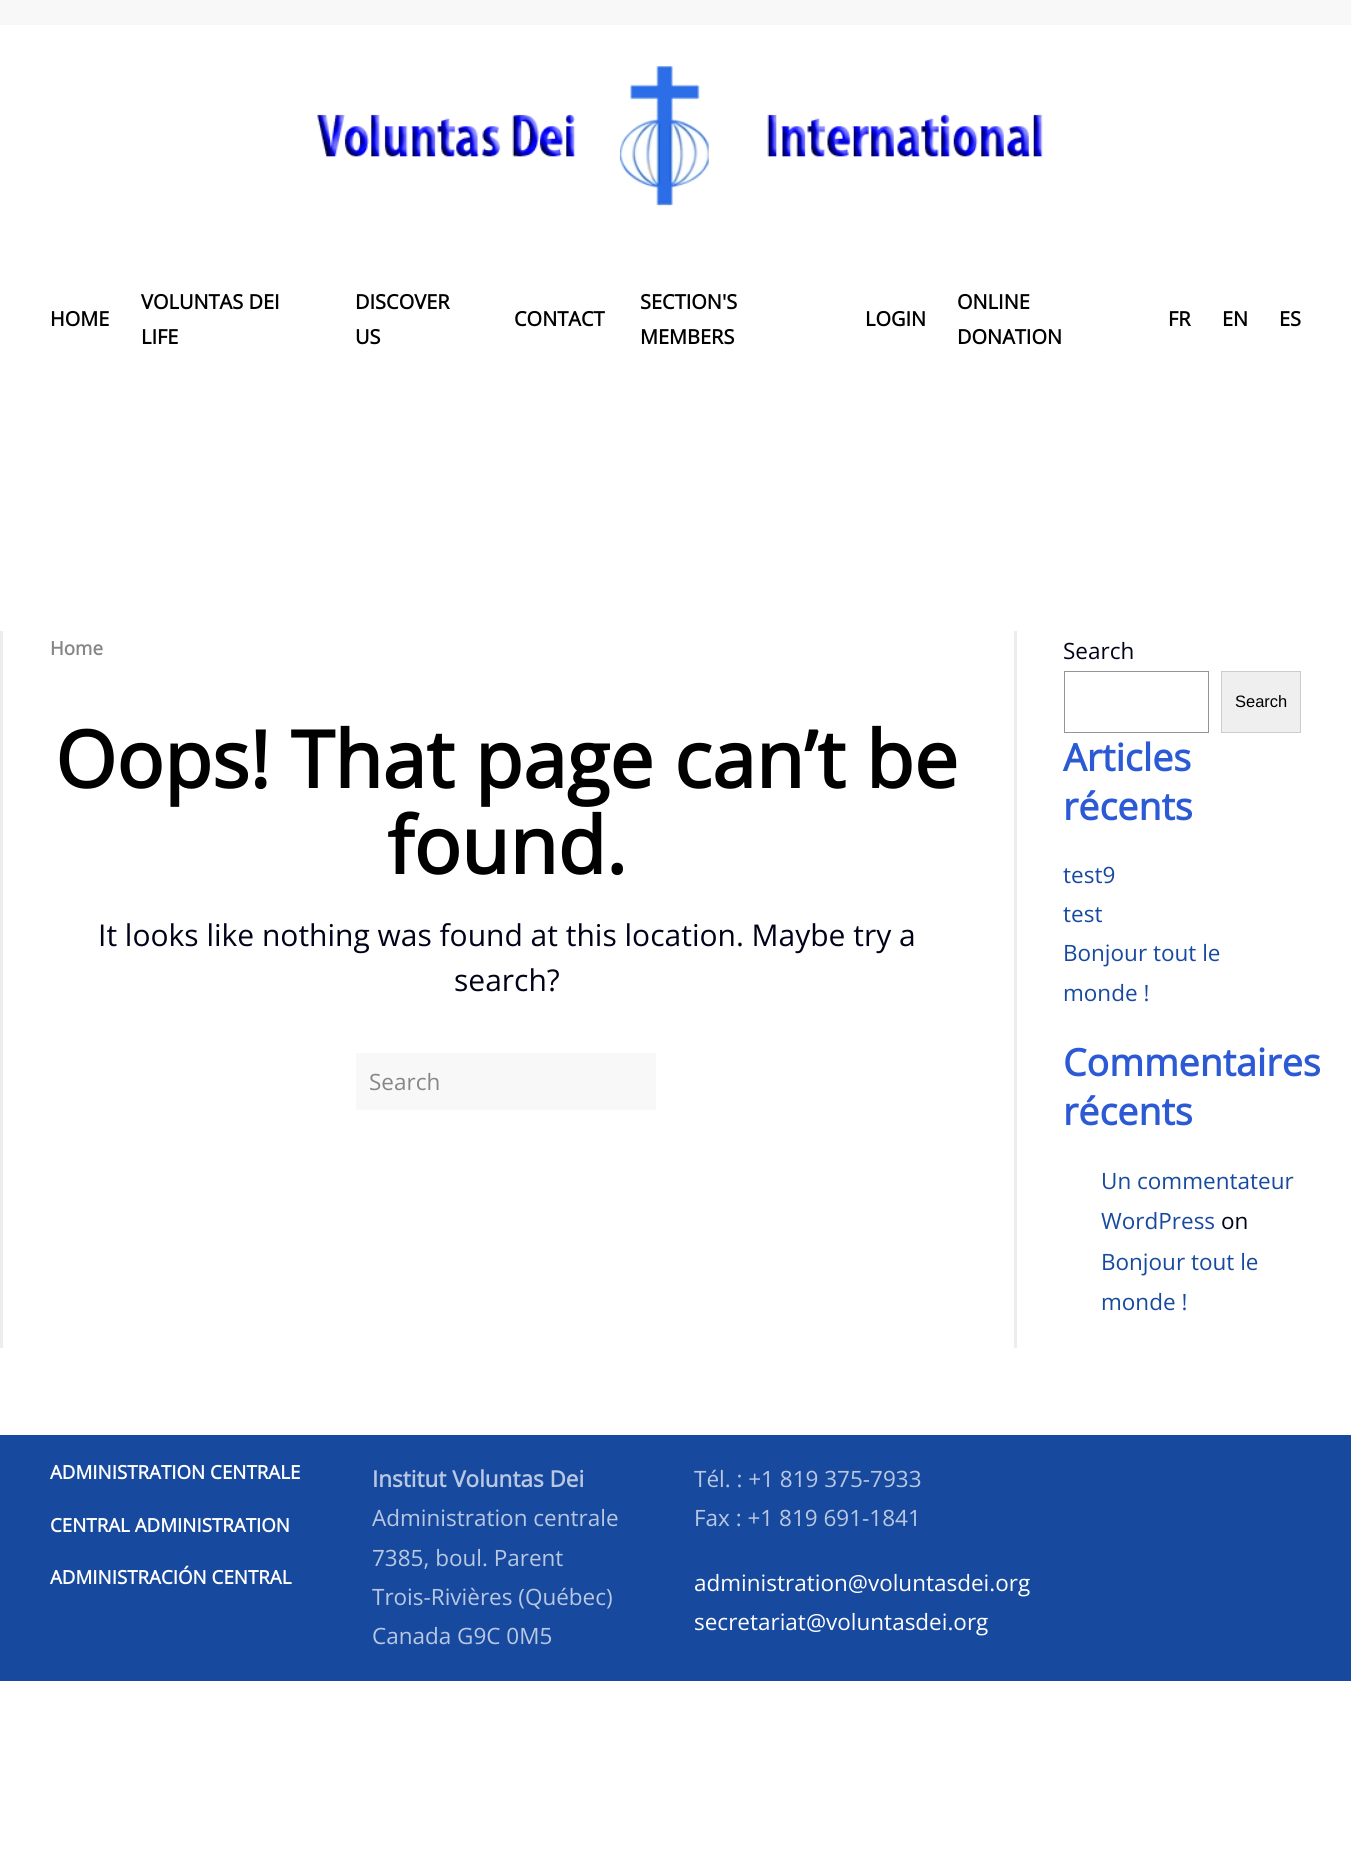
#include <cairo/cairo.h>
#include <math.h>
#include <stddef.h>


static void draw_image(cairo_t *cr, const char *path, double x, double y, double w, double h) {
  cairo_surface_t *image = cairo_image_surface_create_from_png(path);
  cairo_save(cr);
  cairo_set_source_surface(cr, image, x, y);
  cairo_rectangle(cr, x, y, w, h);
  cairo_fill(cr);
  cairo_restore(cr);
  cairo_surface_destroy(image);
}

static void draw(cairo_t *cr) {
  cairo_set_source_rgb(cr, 1, 1, 1);
  cairo_paint(cr);
  cairo_set_source_rgb(cr, 248 / 255.0, 248 / 255.0, 248 / 255.0);
  cairo_rectangle(cr, 0, 0, 1351, 25);
  cairo_fill(cr);
  draw_image(cr, "images/1.png", 317, 66, 726, 140);
  cairo_set_source_rgb(cr, 237 / 255.0, 237 / 255.0, 237 / 255.0);
  cairo_rectangle(cr, 0, 631, 3, 717);
  cairo_fill(cr);
  cairo_set_source_rgb(cr, 248 / 255.0, 248 / 255.0, 248 / 255.0);
  cairo_rectangle(cr, 356, 1053, 300, 57);
  cairo_fill(cr);
  cairo_set_source_rgb(cr, 237 / 255.0, 237 / 255.0, 237 / 255.0);
  cairo_rectangle(cr, 1014, 631, 3, 717);
  cairo_fill(cr);
  cairo_rectangle(cr, 1064.5, 671.5, 144, 61);
  cairo_set_source_rgb(cr, 148 / 255.0, 148 / 255.0, 148 / 255.0);
  cairo_set_line_width(cr, 1);
  cairo_stroke(cr);
  cairo_set_source_rgb(cr, 239 / 255.0, 239 / 255.0, 239 / 255.0);
  cairo_rectangle(cr, 1221.5, 671.5, 79, 61);
  cairo_fill_preserve(cr);
  cairo_set_source_rgb(cr, 204 / 255.0, 204 / 255.0, 204 / 255.0);
  cairo_stroke(cr);
  cairo_set_source_rgb(cr, 23 / 255.0, 73 / 255.0, 159 / 255.0);
  cairo_rectangle(cr, 0, 1435, 1351, 246);
  cairo_fill(cr);
  cairo_select_font_face(cr, "Open Sans", CAIRO_FONT_SLANT_NORMAL, CAIRO_FONT_WEIGHT_BOLD);
  cairo_set_font_size(cr, 20);
  cairo_set_source_rgb(cr, 0, 0, 0);
  cairo_move_to(cr, 50, 326);
  cairo_show_text(cr, "HOME");
  cairo_move_to(cr, 141, 309);
  cairo_show_text(cr, "VOLUNTAS DEI");
  cairo_move_to(cr, 141, 344);
  cairo_show_text(cr, "LIFE");
  cairo_move_to(cr, 355, 309);
  cairo_show_text(cr, "DISCOVER");
  cairo_move_to(cr, 355, 344);
  cairo_show_text(cr, "US");
  cairo_move_to(cr, 514, 326);
  cairo_show_text(cr, "CONTACT");
  cairo_move_to(cr, 640, 309);
  cairo_show_text(cr, "SECTION'S");
  cairo_move_to(cr, 640, 344);
  cairo_show_text(cr, "MEMBERS");
  cairo_move_to(cr, 865, 326);
  cairo_show_text(cr, "LOGIN");
  cairo_move_to(cr, 957, 309);
  cairo_show_text(cr, "ONLINE");
  cairo_move_to(cr, 957, 344);
  cairo_show_text(cr, "DONATION");
  cairo_move_to(cr, 1168, 326);
  cairo_show_text(cr, "FR");
  cairo_move_to(cr, 1222, 326);
  cairo_show_text(cr, "EN");
  cairo_move_to(cr, 1279, 326);
  cairo_show_text(cr, "ES");
  cairo_set_font_size(cr, 18.75);
  cairo_set_source_rgb(cr, 134 / 255.0, 134 / 255.0, 134 / 255.0);
  cairo_move_to(cr, 50, 655);
  cairo_show_text(cr, "Home");
  cairo_set_font_size(cr, 78.75);
  cairo_set_source_rgb(cr, 0, 0, 0);
  cairo_move_to(cr, 55, 788);
  cairo_show_text(cr, "Oops! That page can’t be");
  cairo_move_to(cr, 387, 874);
  cairo_show_text(cr, "found.");
  cairo_select_font_face(cr, "Open Sans", CAIRO_FONT_SLANT_NORMAL, CAIRO_FONT_WEIGHT_NORMAL);
  cairo_set_font_size(cr, 30);
  cairo_set_source_rgb(cr, 0, 1 / 255.0, 24 / 255.0);
  cairo_move_to(cr, 98, 946);
  cairo_show_text(cr, "It looks like nothing was found at this location. Maybe try a");
  cairo_move_to(cr, 454, 991);
  cairo_show_text(cr, "search?");
  cairo_set_font_size(cr, 22.5);
  cairo_set_source_rgb(cr, 134 / 255.0, 134 / 255.0, 134 / 255.0);
  cairo_move_to(cr, 369, 1090);
  cairo_show_text(cr, "Search");
  cairo_set_source_rgb(cr, 0, 1 / 255.0, 24 / 255.0);
  cairo_move_to(cr, 1063, 659);
  cairo_show_text(cr, "Search");
  cairo_select_font_face(cr, "Liberation Sans", CAIRO_FONT_SLANT_NORMAL, CAIRO_FONT_WEIGHT_NORMAL);
  cairo_set_font_size(cr, 16.5);
  cairo_set_source_rgb(cr, 0, 0, 0);
  cairo_move_to(cr, 1235, 707);
  cairo_show_text(cr, "Search");
  cairo_select_font_face(cr, "Open Sans", CAIRO_FONT_SLANT_NORMAL, CAIRO_FONT_WEIGHT_BOLD);
  cairo_set_font_size(cr, 37.5);
  cairo_set_source_rgb(cr, 44 / 255.0, 90 / 255.0, 213 / 255.0);
  cairo_move_to(cr, 1063, 771);
  cairo_show_text(cr, "Articles");
  cairo_move_to(cr, 1063, 820);
  cairo_show_text(cr, "récents");
  cairo_select_font_face(cr, "Open Sans", CAIRO_FONT_SLANT_NORMAL, CAIRO_FONT_WEIGHT_NORMAL);
  cairo_set_font_size(cr, 22.5);
  cairo_set_source_rgb(cr, 23 / 255.0, 73 / 255.0, 159 / 255.0);
  cairo_move_to(cr, 1063, 883);
  cairo_show_text(cr, "test9");
  cairo_move_to(cr, 1063, 922);
  cairo_show_text(cr, "test");
  cairo_move_to(cr, 1063, 961);
  cairo_show_text(cr, "Bonjour tout le");
  cairo_move_to(cr, 1063, 1001);
  cairo_show_text(cr, "monde !");
  cairo_select_font_face(cr, "Open Sans", CAIRO_FONT_SLANT_NORMAL, CAIRO_FONT_WEIGHT_BOLD);
  cairo_set_font_size(cr, 37.5);
  cairo_set_source_rgb(cr, 44 / 255.0, 90 / 255.0, 213 / 255.0);
  cairo_move_to(cr, 1063, 1076);
  cairo_show_text(cr, "Commentaires");
  cairo_move_to(cr, 1063, 1125);
  cairo_show_text(cr, "récents");
  cairo_select_font_face(cr, "Open Sans", CAIRO_FONT_SLANT_NORMAL, CAIRO_FONT_WEIGHT_NORMAL);
  cairo_set_font_size(cr, 22.5);
  cairo_set_source_rgb(cr, 23 / 255.0, 73 / 255.0, 159 / 255.0);
  cairo_move_to(cr, 1101, 1189);
  cairo_show_text(cr, "Un commentateur");
  cairo_move_to(cr, 1101, 1229);
  cairo_show_text(cr, "WordPress");
  cairo_set_source_rgb(cr, 0, 1 / 255.0, 24 / 255.0);
  cairo_move_to(cr, 1221, 1229);
  cairo_show_text(cr, "on");
  cairo_set_source_rgb(cr, 23 / 255.0, 73 / 255.0, 159 / 255.0);
  cairo_move_to(cr, 1101, 1270);
  cairo_show_text(cr, "Bonjour tout le");
  cairo_move_to(cr, 1101, 1310);
  cairo_show_text(cr, "monde !");
  cairo_select_font_face(cr, "Open Sans", CAIRO_FONT_SLANT_NORMAL, CAIRO_FONT_WEIGHT_BOLD);
  cairo_set_font_size(cr, 18.75);
  cairo_set_source_rgb(cr, 1, 1, 1);
  cairo_move_to(cr, 50, 1479);
  cairo_show_text(cr, "ADMINISTRATION CENTRALE");
  cairo_move_to(cr, 50, 1532);
  cairo_show_text(cr, "CENTRAL ADMINISTRATION");
  cairo_move_to(cr, 50, 1584);
  cairo_show_text(cr, "ADMINISTRACIÓN CENTRAL");
  cairo_set_font_size(cr, 22.5);
  cairo_set_source_rgb(cr, 185 / 255.0, 200 / 255.0, 226 / 255.0);
  cairo_move_to(cr, 372, 1487);
  cairo_show_text(cr, "Institut Voluntas Dei");
  cairo_select_font_face(cr, "Open Sans", CAIRO_FONT_SLANT_NORMAL, CAIRO_FONT_WEIGHT_NORMAL);
  cairo_move_to(cr, 372, 1526);
  cairo_show_text(cr, "Administration centrale");
  cairo_move_to(cr, 372, 1566);
  cairo_show_text(cr, "7385, boul. Parent");
  cairo_move_to(cr, 372, 1605);
  cairo_show_text(cr, "Trois-Rivières (Québec)");
  cairo_move_to(cr, 372, 1644);
  cairo_show_text(cr, "Canada G9C 0M5");
  cairo_move_to(cr, 694, 1487);
  cairo_show_text(cr, "Tél. : +1 819 375-7933");
  cairo_move_to(cr, 694, 1526);
  cairo_show_text(cr, "Fax : +1 819 691-1841");
  cairo_set_source_rgb(cr, 1, 1, 1);
  cairo_move_to(cr, 694, 1591);
  cairo_show_text(cr, "administration@voluntasdei.org");
  cairo_move_to(cr, 694, 1630);
  cairo_show_text(cr, "secretariat@voluntasdei.org");
}

int main(void) {
  cairo_surface_t *surface = cairo_image_surface_create(CAIRO_FORMAT_RGB24, 1351, 1852);
  cairo_t *cr = cairo_create(surface);
  cairo_font_options_t *options = cairo_font_options_create();
  cairo_font_options_set_hint_metrics(options, CAIRO_HINT_METRICS_OFF);
  cairo_font_options_set_hint_style(options, CAIRO_HINT_STYLE_NONE);
  cairo_set_font_options(cr, options);
  cairo_set_miter_limit(cr, 4);
  draw(cr);
  cairo_surface_write_to_png(surface, "out.png");
  cairo_font_options_destroy(options);
  cairo_destroy(cr);
  cairo_surface_destroy(surface);
  return 0;
}
